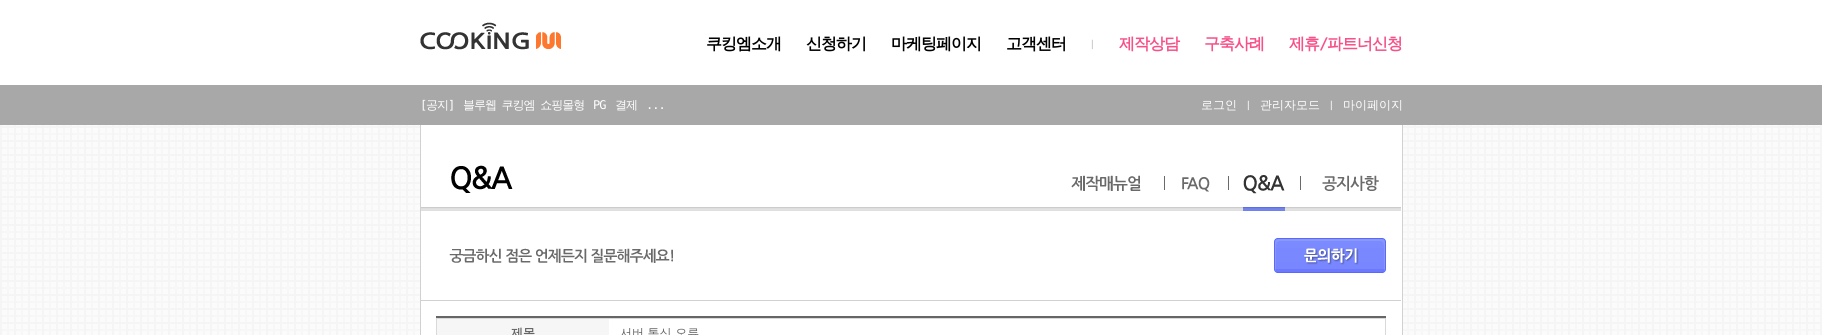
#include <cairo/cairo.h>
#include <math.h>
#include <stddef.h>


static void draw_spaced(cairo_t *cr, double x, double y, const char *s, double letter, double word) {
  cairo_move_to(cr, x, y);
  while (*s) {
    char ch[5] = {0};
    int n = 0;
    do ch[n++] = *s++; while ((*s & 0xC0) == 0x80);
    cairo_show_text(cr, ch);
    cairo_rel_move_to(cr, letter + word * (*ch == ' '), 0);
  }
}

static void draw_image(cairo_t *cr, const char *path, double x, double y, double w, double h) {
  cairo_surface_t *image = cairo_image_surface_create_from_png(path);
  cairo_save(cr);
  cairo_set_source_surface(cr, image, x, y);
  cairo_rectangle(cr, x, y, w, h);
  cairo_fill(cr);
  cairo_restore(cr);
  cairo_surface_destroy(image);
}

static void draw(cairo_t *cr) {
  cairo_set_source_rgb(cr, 1, 1, 1);
  cairo_paint(cr);
  draw_image(cr, "images/1.png", 0, 125, 1822, 210);
  cairo_set_source_rgb(cr, 1, 1, 1);
  cairo_rectangle(cr, 421, 125, 981, 210);
  cairo_fill(cr);
  cairo_rectangle(cr, 420.5, 14.5, 982, 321);
  cairo_set_source_rgb(cr, 209 / 255.0, 209 / 255.0, 209 / 255.0);
  cairo_set_line_width(cr, 1);
  cairo_stroke(cr);
  cairo_set_source_rgb(cr, 1, 1, 1);
  cairo_rectangle(cr, 420, 14, 983, 71);
  cairo_fill(cr);
  draw_image(cr, "images/2.png", 420, 22, 141, 28);
  cairo_set_source_rgb(cr, 168 / 255.0, 168 / 255.0, 168 / 255.0);
  cairo_rectangle(cr, 0, 85, 1822, 40);
  cairo_fill(cr);
  draw_image(cr, "images/3.png", 421, 207, 200, 4);
  draw_image(cr, "images/4.png", 451, 165, 62, 28);
  draw_image(cr, "images/5.png", 621, 207, 780, 4);
  draw_image(cr, "images/6.png", 1071, 175, 70, 16);
  draw_image(cr, "images/7.png", 1164, 176, 46, 16);
  draw_image(cr, "images/8.png", 1228, 175, 57, 36);
  draw_image(cr, "images/9.png", 1300, 175, 79, 16);
  cairo_set_source_rgb(cr, 209 / 255.0, 209 / 255.0, 209 / 255.0);
  cairo_rectangle(cr, 421, 300, 980, 1);
  cairo_fill(cr);
  draw_image(cr, "images/10.png", 449, 248, 224, 15);
  draw_image(cr, "images/11.png", 1274, 238, 112, 35);
  cairo_set_source_rgb(cr, 102 / 255.0, 102 / 255.0, 102 / 255.0);
  cairo_rectangle(cr, 436, 316, 950, 2);
  cairo_fill(cr);
  cairo_set_source_rgb(cr, 217 / 255.0, 217 / 255.0, 217 / 255.0);
  cairo_rectangle(cr, 436, 318, 950, 17);
  cairo_fill(cr);
  cairo_set_source_rgb(cr, 1, 1, 1);
  cairo_rectangle(cr, 609, 319, 776, 16);
  cairo_fill(cr);
  cairo_set_source_rgb(cr, 246 / 255.0, 246 / 255.0, 246 / 255.0);
  cairo_rectangle(cr, 437, 319, 172, 16);
  cairo_fill(cr);
  cairo_select_font_face(cr, "WenQuanYi Zen Hei", CAIRO_FONT_SLANT_NORMAL, CAIRO_FONT_WEIGHT_BOLD);
  cairo_set_font_size(cr, 16);
  cairo_set_source_rgb(cr, 0, 0, 0);
  draw_spaced(cr, 706, 49, "쿠킹엠소개", -1, 0);
  draw_spaced(cr, 806, 49, "신청하기", -1, 0);
  draw_spaced(cr, 891, 49, "마케팅페이지", -1, 0);
  draw_spaced(cr, 1006, 49, "고객센터", -1, 0);
  cairo_select_font_face(cr, "Liberation Sans", CAIRO_FONT_SLANT_NORMAL, CAIRO_FONT_WEIGHT_NORMAL);
  cairo_set_font_size(cr, 10);
  cairo_set_source_rgb(cr, 188 / 255.0, 188 / 255.0, 188 / 255.0);
  cairo_move_to(cr, 1091, 47);
  cairo_show_text(cr, "|");
  cairo_select_font_face(cr, "WenQuanYi Zen Hei", CAIRO_FONT_SLANT_NORMAL, CAIRO_FONT_WEIGHT_BOLD);
  cairo_set_font_size(cr, 16);
  cairo_set_source_rgb(cr, 246 / 255.0, 82 / 255.0, 137 / 255.0);
  draw_spaced(cr, 1119, 49, "제작상담", -1, 0);
  draw_spaced(cr, 1204, 49, "구축사례", -1, 0);
  draw_spaced(cr, 1289, 49, "제휴", -1, 0);
  cairo_select_font_face(cr, "DejaVu Sans Mono", CAIRO_FONT_SLANT_NORMAL, CAIRO_FONT_WEIGHT_BOLD);
  draw_spaced(cr, 1319, 49, "/", -1, 0);
  cairo_select_font_face(cr, "WenQuanYi Zen Hei", CAIRO_FONT_SLANT_NORMAL, CAIRO_FONT_WEIGHT_BOLD);
  draw_spaced(cr, 1327, 49, "파트너신청", -1, 0);
  cairo_select_font_face(cr, "DejaVu Sans Mono", CAIRO_FONT_SLANT_NORMAL, CAIRO_FONT_WEIGHT_NORMAL);
  cairo_set_font_size(cr, 12);
  cairo_set_source_rgb(cr, 1, 1, 1);
  draw_spaced(cr, 420, 109, "[", -1, 0);
  cairo_select_font_face(cr, "WenQuanYi Zen Hei Medium", CAIRO_FONT_SLANT_NORMAL, CAIRO_FONT_WEIGHT_NORMAL);
  draw_spaced(cr, 426, 109, "공지", -1, 0);
  cairo_select_font_face(cr, "DejaVu Sans Mono", CAIRO_FONT_SLANT_NORMAL, CAIRO_FONT_WEIGHT_NORMAL);
  draw_spaced(cr, 448, 109, "]", -1, 0);
  cairo_select_font_face(cr, "WenQuanYi Zen Hei Medium", CAIRO_FONT_SLANT_NORMAL, CAIRO_FONT_WEIGHT_NORMAL);
  draw_spaced(cr, 463, 109, "블루웹 쿠킹엠 쇼핑몰형", -1, 3);
  cairo_select_font_face(cr, "DejaVu Sans Mono", CAIRO_FONT_SLANT_NORMAL, CAIRO_FONT_WEIGHT_NORMAL);
  draw_spaced(cr, 593, 109, "PG", -1, 0);
  cairo_select_font_face(cr, "WenQuanYi Zen Hei Medium", CAIRO_FONT_SLANT_NORMAL, CAIRO_FONT_WEIGHT_NORMAL);
  draw_spaced(cr, 615, 109, "결제", -1, 0);
  cairo_select_font_face(cr, "DejaVu Sans Mono", CAIRO_FONT_SLANT_NORMAL, CAIRO_FONT_WEIGHT_NORMAL);
  draw_spaced(cr, 646, 109, "...", -1, 0);
  cairo_select_font_face(cr, "WenQuanYi Zen Hei Medium", CAIRO_FONT_SLANT_NORMAL, CAIRO_FONT_WEIGHT_NORMAL);
  cairo_move_to(cr, 1201, 109);
  cairo_show_text(cr, "로그인");
  cairo_select_font_face(cr, "Liberation Sans", CAIRO_FONT_SLANT_NORMAL, CAIRO_FONT_WEIGHT_NORMAL);
  cairo_set_font_size(cr, 10);
  cairo_move_to(cr, 1247, 108);
  cairo_show_text(cr, "|");
  cairo_select_font_face(cr, "WenQuanYi Zen Hei Medium", CAIRO_FONT_SLANT_NORMAL, CAIRO_FONT_WEIGHT_NORMAL);
  cairo_set_font_size(cr, 12);
  cairo_move_to(cr, 1260, 109);
  cairo_show_text(cr, "관리자모드");
  cairo_select_font_face(cr, "Liberation Sans", CAIRO_FONT_SLANT_NORMAL, CAIRO_FONT_WEIGHT_NORMAL);
  cairo_set_font_size(cr, 10);
  cairo_move_to(cr, 1330, 108);
  cairo_show_text(cr, "|");
  cairo_select_font_face(cr, "WenQuanYi Zen Hei Medium", CAIRO_FONT_SLANT_NORMAL, CAIRO_FONT_WEIGHT_NORMAL);
  cairo_set_font_size(cr, 12);
  cairo_move_to(cr, 1343, 109);
  cairo_show_text(cr, "마이페이지");
  cairo_select_font_face(cr, "WenQuanYi Zen Hei", CAIRO_FONT_SLANT_NORMAL, CAIRO_FONT_WEIGHT_BOLD);
  cairo_set_source_rgb(cr, 102 / 255.0, 102 / 255.0, 102 / 255.0);
  cairo_move_to(cr, 511, 337);
  cairo_show_text(cr, "제목");
  cairo_select_font_face(cr, "WenQuanYi Zen Hei Medium", CAIRO_FONT_SLANT_NORMAL, CAIRO_FONT_WEIGHT_NORMAL);
  cairo_move_to(cr, 620, 337);
  cairo_show_text(cr, "서버 통신 오류");
}

int main(void) {
  cairo_surface_t *surface = cairo_image_surface_create(CAIRO_FORMAT_RGB24, 1822, 335);
  cairo_t *cr = cairo_create(surface);
  cairo_font_options_t *options = cairo_font_options_create();
  cairo_font_options_set_hint_metrics(options, CAIRO_HINT_METRICS_OFF);
  cairo_font_options_set_hint_style(options, CAIRO_HINT_STYLE_NONE);
  cairo_set_font_options(cr, options);
  cairo_set_miter_limit(cr, 4);
  draw(cr);
  cairo_surface_write_to_png(surface, "out.png");
  cairo_font_options_destroy(options);
  cairo_destroy(cr);
  cairo_surface_destroy(surface);
  return 0;
}
